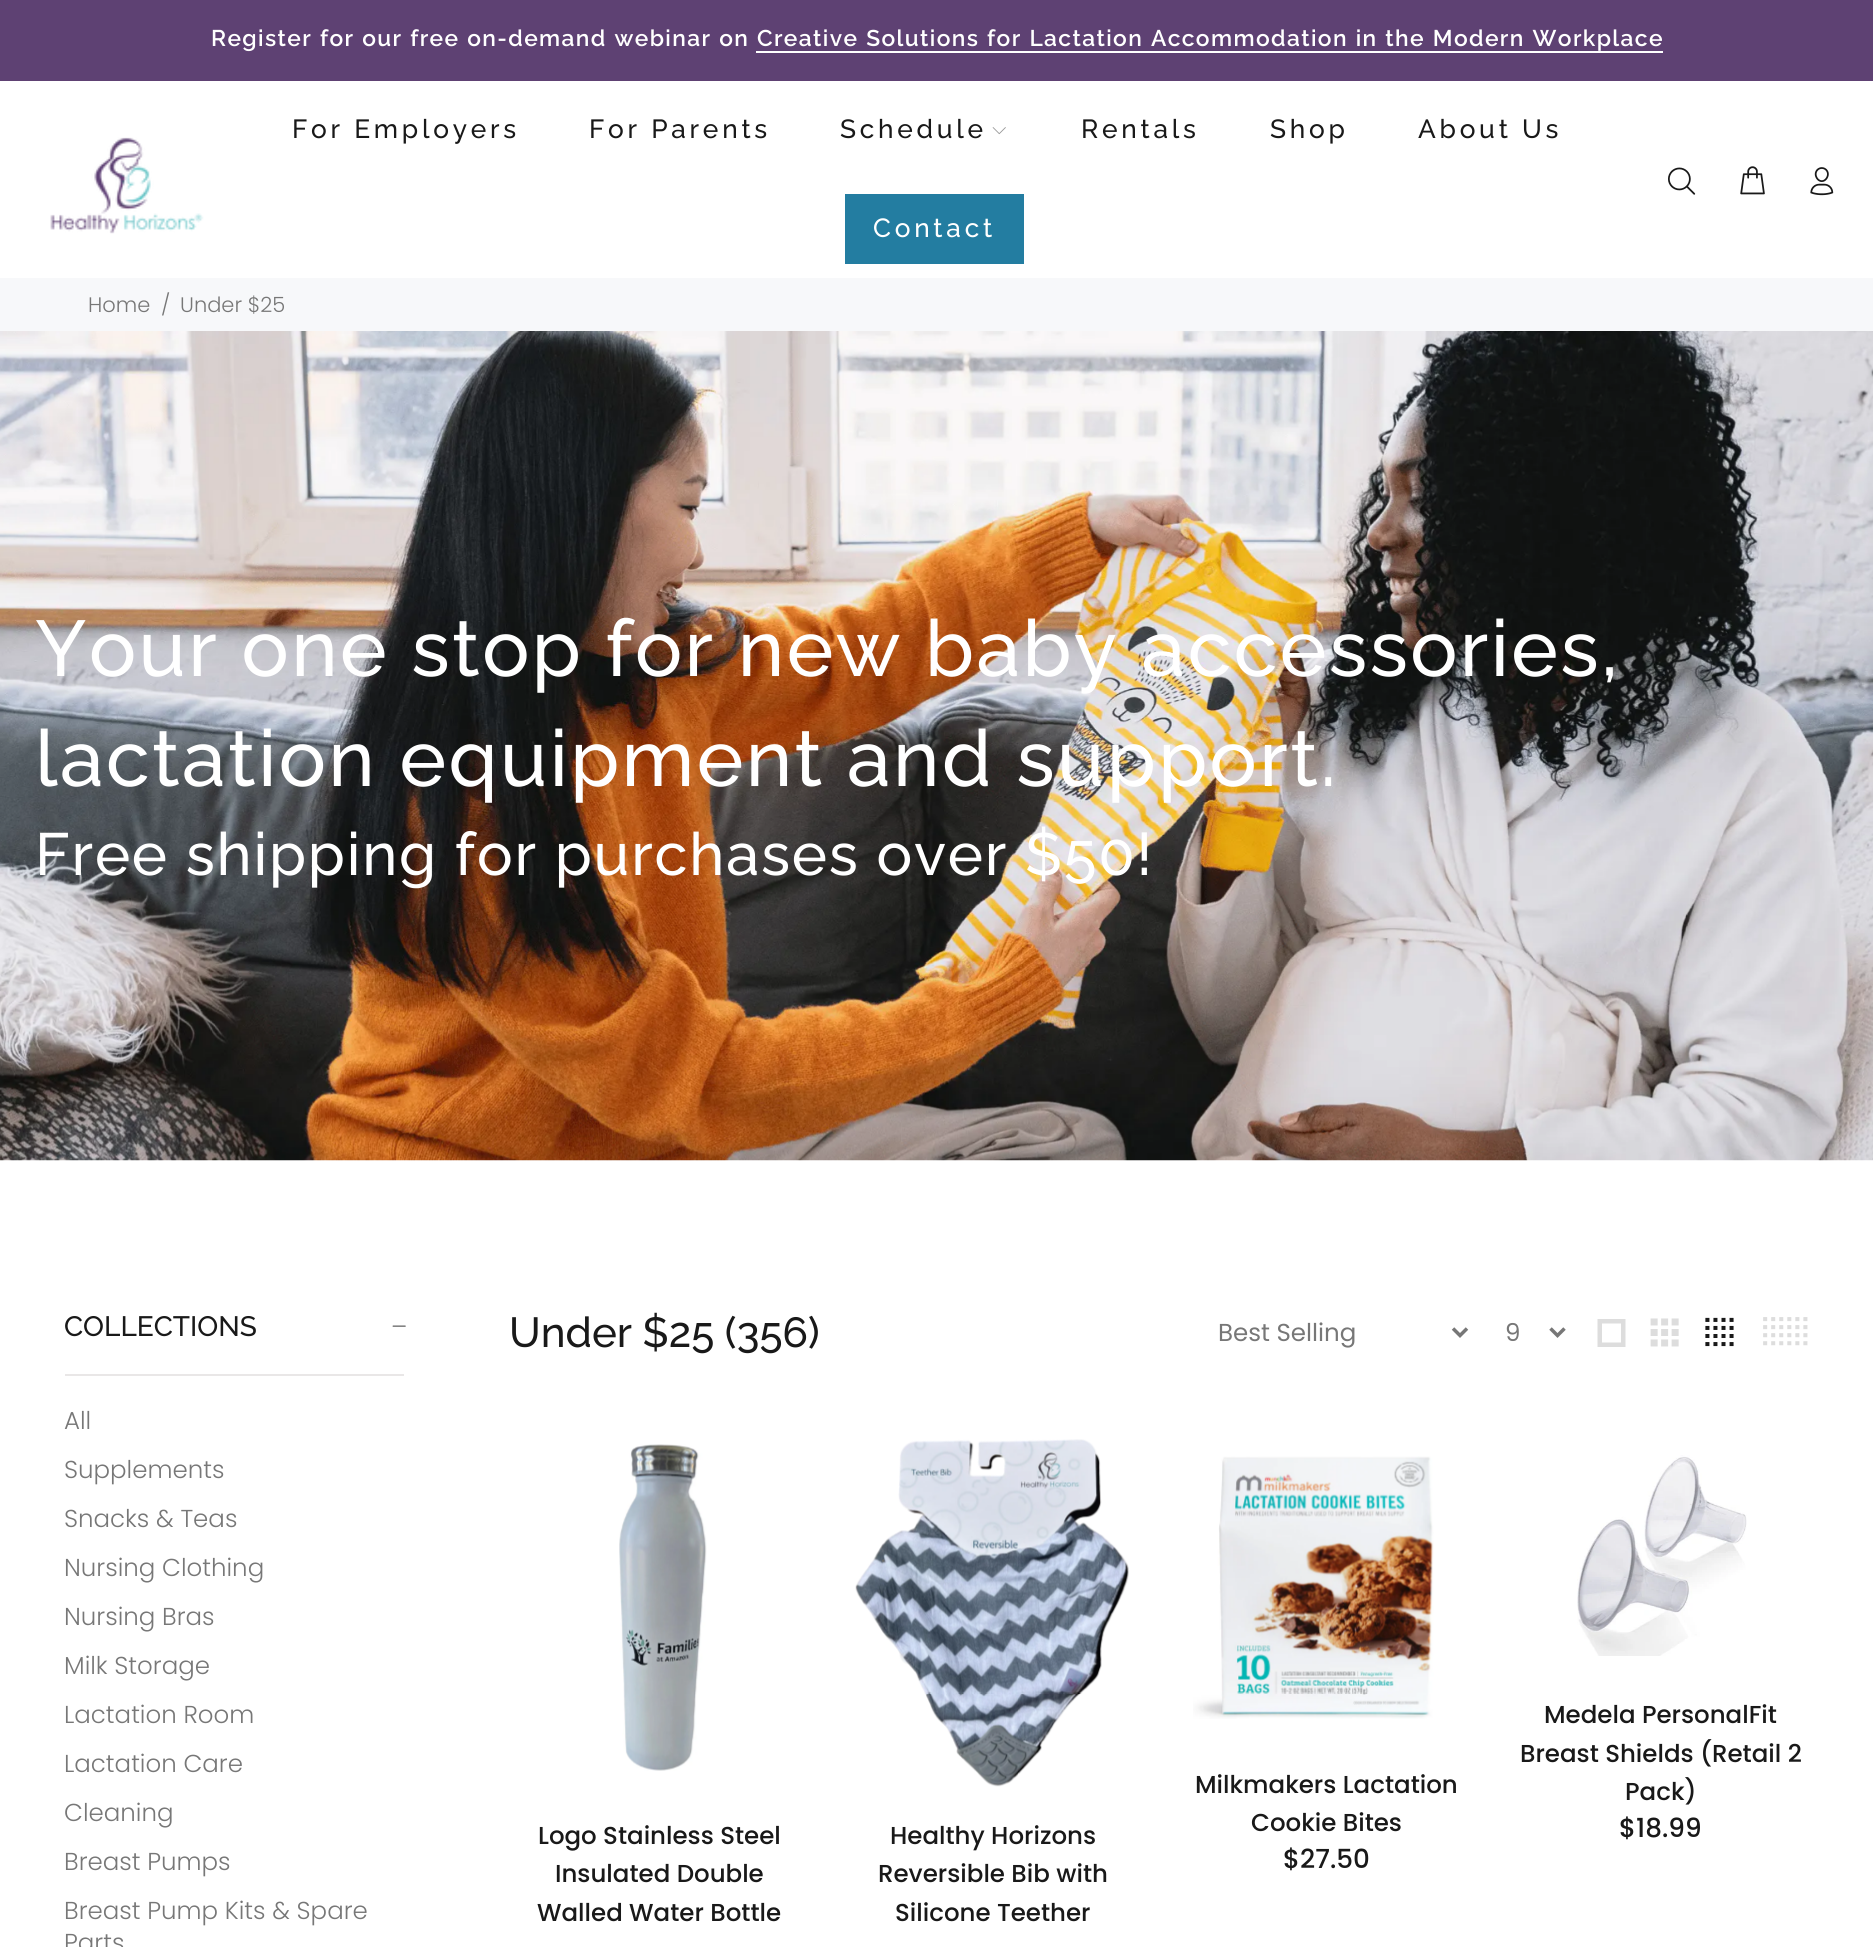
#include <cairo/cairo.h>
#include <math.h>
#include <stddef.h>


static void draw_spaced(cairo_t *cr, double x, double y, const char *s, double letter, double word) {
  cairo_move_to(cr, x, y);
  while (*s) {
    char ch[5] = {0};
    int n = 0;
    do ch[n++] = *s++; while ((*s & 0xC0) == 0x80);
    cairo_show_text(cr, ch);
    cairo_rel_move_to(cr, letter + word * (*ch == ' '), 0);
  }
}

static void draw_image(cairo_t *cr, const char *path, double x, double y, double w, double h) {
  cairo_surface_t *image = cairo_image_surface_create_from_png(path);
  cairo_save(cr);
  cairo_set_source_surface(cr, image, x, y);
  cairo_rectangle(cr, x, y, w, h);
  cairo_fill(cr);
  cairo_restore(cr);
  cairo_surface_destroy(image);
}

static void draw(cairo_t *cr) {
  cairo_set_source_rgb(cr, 1, 1, 1);
  cairo_paint(cr);
  cairo_set_source_rgb(cr, 94 / 255.0, 65 / 255.0, 115 / 255.0);
  cairo_rectangle(cr, 0, 0, 1873, 81);
  cairo_fill(cr);
  cairo_set_source_rgb(cr, 1, 1, 1);
  cairo_rectangle(cr, 756, 51, 907, 2);
  cairo_fill(cr);
  draw_image(cr, "images/1.png", 50, 137, 154, 97);
  draw_image(cr, "images/2.png", 992, 127, 14, 8);
  cairo_set_source_rgb(cr, 35 / 255.0, 125 / 255.0, 161 / 255.0);
  cairo_rectangle(cr, 845, 194, 179, 70);
  cairo_fill(cr);
  draw_image(cr, "images/3.png", 1668, 167, 28, 28);
  draw_image(cr, "images/4.png", 1740, 166, 25, 29);
  draw_image(cr, "images/5.png", 1810, 167, 24, 29);
  cairo_set_source_rgb(cr, 247 / 255.0, 248 / 255.0, 250 / 255.0);
  cairo_rectangle(cr, 0, 278, 1873, 53);
  cairo_fill(cr);
  draw_image(cr, "images/6.png", 0, 331, 1873, 830);
  cairo_set_source_rgb(cr, 233 / 255.0, 231 / 255.0, 231 / 255.0);
  cairo_rectangle(cr, 65, 1374, 339, 2);
  cairo_fill(cr);
  draw_image(cr, "images/7.png", 392, 1325, 14, 2);
  cairo_new_path(cr);
  cairo_move_to(cr, 1453, 1328.5);
  cairo_line_to(cr, 1460, 1335.5);
  cairo_line_to(cr, 1467, 1328.5);
  cairo_set_source_rgb(cr, 119 / 255.0, 119 / 255.0, 119 / 255.0);
  cairo_set_line_width(cr, 3.5);
  cairo_stroke(cr);
  cairo_new_path(cr);
  cairo_move_to(cr, 1550.5, 1328.5);
  cairo_line_to(cr, 1557.5, 1335.5);
  cairo_line_to(cr, 1564.5, 1328.5);
  cairo_stroke(cr);
  cairo_set_source_rgb(cr, 221 / 255.0, 221 / 255.0, 221 / 255.0);
  cairo_new_path(cr);
  cairo_move_to(cr, 1597.5, 1347);
  cairo_line_to(cr, 1597.5, 1319);
  cairo_line_to(cr, 1625.5, 1319);
  cairo_line_to(cr, 1625.5, 1347);
  cairo_close_path(cr);
  cairo_move_to(cr, 1602, 1342.5);
  cairo_line_to(cr, 1621, 1342.5);
  cairo_line_to(cr, 1621, 1323.5);
  cairo_line_to(cr, 1602, 1323.5);
  cairo_close_path(cr);
  cairo_fill(cr);
  draw_image(cr, "images/8.png", 1650, 1318, 29, 29);
  draw_image(cr, "images/9.png", 1705, 1317, 29, 30);
  draw_image(cr, "images/10.png", 1763, 1317, 45, 29);
  draw_image(cr, "images/11.png", 619, 1444, 88, 327);
  draw_image(cr, "images/12.png", 855, 1439, 274, 348);
  draw_image(cr, "images/13.png", 1193, 1456, 241, 263);
  draw_image(cr, "images/14.png", 1577, 1455, 170, 201);
  cairo_select_font_face(cr, "Raleway SemiBold", CAIRO_FONT_SLANT_NORMAL, CAIRO_FONT_WEIGHT_NORMAL);
  cairo_set_font_size(cr, 22.75);
  cairo_set_source_rgb(cr, 1, 1, 1);
  draw_spaced(cr, 211, 46, "Register for our free on-demand webinar on", 1.4, 0.75);
  draw_spaced(cr, 757, 46, "Creative Solutions for Lactation Accommodation in the Modern Workplace", 1.4, 0.75);
  cairo_select_font_face(cr, "Raleway Medium", CAIRO_FONT_SLANT_NORMAL, CAIRO_FONT_WEIGHT_NORMAL);
  cairo_set_font_size(cr, 26.25);
  cairo_set_source_rgb(cr, 25 / 255.0, 25 / 255.0, 25 / 255.0);
  draw_spaced(cr, 292, 138, "For Employers", 3.75, 0);
  draw_spaced(cr, 589, 138, "For Parents", 3.75, 0);
  draw_spaced(cr, 840, 138, "Schedule", 3.75, 0);
  draw_spaced(cr, 1081, 138, "Rentals", 3.75, 0);
  draw_spaced(cr, 1270, 138, "Shop", 3.75, 0);
  draw_spaced(cr, 1418, 138, "About Us", 3.75, 0);
  cairo_set_source_rgb(cr, 1, 1, 1);
  draw_spaced(cr, 873, 237, "Contact", 3.75, 0);
  cairo_select_font_face(cr, "Poppins Light", CAIRO_FONT_SLANT_NORMAL, CAIRO_FONT_WEIGHT_NORMAL);
  cairo_set_font_size(cr, 21);
  cairo_set_source_rgb(cr, 119 / 255.0, 119 / 255.0, 119 / 255.0);
  cairo_move_to(cr, 88, 312);
  cairo_show_text(cr, "Home");
  cairo_move_to(cr, 161, 312);
  cairo_show_text(cr, "/");
  cairo_move_to(cr, 180, 312);
  cairo_show_text(cr, "Under $25");
  cairo_select_font_face(cr, "Raleway Medium", CAIRO_FONT_SLANT_NORMAL, CAIRO_FONT_WEIGHT_NORMAL);
  cairo_set_font_size(cr, 78.75);
  cairo_set_source_rgb(cr, 1, 1, 1);
  draw_spaced(cr, 35, 676, "Your one stop for new baby accessories,", 2.4, 0);
  draw_spaced(cr, 35, 786, "lactation equipment and support.", 2.4, 0);
  cairo_set_font_size(cr, 59.5);
  draw_spaced(cr, 35, 875, "Free shipping for purchases over $50!", 1.8, 0);
  cairo_set_font_size(cr, 28);
  cairo_set_source_rgb(cr, 25 / 255.0, 25 / 255.0, 25 / 255.0);
  cairo_move_to(cr, 64, 1336);
  cairo_show_text(cr, "COLLECTIONS");
  cairo_select_font_face(cr, "Poppins Light", CAIRO_FONT_SLANT_NORMAL, CAIRO_FONT_WEIGHT_NORMAL);
  cairo_set_font_size(cr, 24.5);
  cairo_set_source_rgb(cr, 119 / 255.0, 119 / 255.0, 119 / 255.0);
  cairo_move_to(cr, 64, 1429);
  cairo_show_text(cr, "All");
  cairo_move_to(cr, 64, 1478);
  cairo_show_text(cr, "Supplements");
  cairo_move_to(cr, 64, 1527);
  cairo_show_text(cr, "Snacks & Teas");
  cairo_move_to(cr, 64, 1576);
  cairo_show_text(cr, "Nursing Clothing");
  cairo_move_to(cr, 64, 1625);
  cairo_show_text(cr, "Nursing Bras");
  cairo_move_to(cr, 64, 1674);
  cairo_show_text(cr, "Milk Storage");
  cairo_move_to(cr, 64, 1723);
  cairo_show_text(cr, "Lactation Room");
  cairo_move_to(cr, 64, 1772);
  cairo_show_text(cr, "Lactation Care");
  cairo_move_to(cr, 64, 1821);
  cairo_show_text(cr, "Cleaning");
  cairo_move_to(cr, 64, 1870);
  cairo_show_text(cr, "Breast Pumps");
  cairo_move_to(cr, 64, 1919);
  cairo_show_text(cr, "Breast Pump Kits & Spare");
  cairo_move_to(cr, 64, 1951);
  cairo_show_text(cr, "Parts");
  cairo_select_font_face(cr, "Raleway Medium", CAIRO_FONT_SLANT_NORMAL, CAIRO_FONT_WEIGHT_NORMAL);
  cairo_set_font_size(cr, 42);
  cairo_set_source_rgb(cr, 25 / 255.0, 25 / 255.0, 25 / 255.0);
  cairo_move_to(cr, 509, 1347);
  cairo_show_text(cr, "Under $25 (356)");
  cairo_select_font_face(cr, "Poppins", CAIRO_FONT_SLANT_NORMAL, CAIRO_FONT_WEIGHT_NORMAL);
  cairo_set_font_size(cr, 24.5);
  cairo_set_source_rgb(cr, 119 / 255.0, 119 / 255.0, 119 / 255.0);
  cairo_move_to(cr, 1218, 1341);
  cairo_show_text(cr, "Best Selling");
  cairo_move_to(cr, 1505, 1341);
  cairo_show_text(cr, "9");
  cairo_select_font_face(cr, "Poppins Medium", CAIRO_FONT_SLANT_NORMAL, CAIRO_FONT_WEIGHT_NORMAL);
  cairo_set_source_rgb(cr, 25 / 255.0, 25 / 255.0, 25 / 255.0);
  cairo_move_to(cr, 538, 1844);
  cairo_show_text(cr, "Logo Stainless Steel");
  cairo_move_to(cr, 555, 1882);
  cairo_show_text(cr, "Insulated Double");
  cairo_move_to(cr, 537, 1921);
  cairo_show_text(cr, "Walled Water Bottle");
  cairo_move_to(cr, 890, 1844);
  cairo_show_text(cr, "Healthy Horizons");
  cairo_move_to(cr, 878, 1882);
  cairo_show_text(cr, "Reversible Bib with");
  cairo_move_to(cr, 895, 1921);
  cairo_show_text(cr, "Silicone Teether");
  cairo_move_to(cr, 1195, 1793);
  cairo_show_text(cr, "Milkmakers Lactation");
  cairo_move_to(cr, 1251, 1831);
  cairo_show_text(cr, "Cookie Bites");
  cairo_set_font_size(cr, 26.25);
  cairo_move_to(cr, 1283, 1868);
  cairo_show_text(cr, "$27.50");
  cairo_set_font_size(cr, 24.5);
  cairo_move_to(cr, 1544, 1723);
  cairo_show_text(cr, "Medela PersonalFit");
  cairo_move_to(cr, 1520, 1762);
  cairo_show_text(cr, "Breast Shields (Retail 2");
  cairo_move_to(cr, 1625, 1800);
  cairo_show_text(cr, "Pack)");
  cairo_set_font_size(cr, 26.25);
  cairo_move_to(cr, 1619, 1837);
  cairo_show_text(cr, "$18.99");
}

int main(void) {
  cairo_surface_t *surface = cairo_image_surface_create(CAIRO_FORMAT_RGB24, 1873, 1947);
  cairo_t *cr = cairo_create(surface);
  cairo_font_options_t *options = cairo_font_options_create();
  cairo_font_options_set_hint_metrics(options, CAIRO_HINT_METRICS_OFF);
  cairo_font_options_set_hint_style(options, CAIRO_HINT_STYLE_NONE);
  cairo_set_font_options(cr, options);
  cairo_set_miter_limit(cr, 4);
  draw(cr);
  cairo_surface_write_to_png(surface, "out.png");
  cairo_font_options_destroy(options);
  cairo_destroy(cr);
  cairo_surface_destroy(surface);
  return 0;
}
